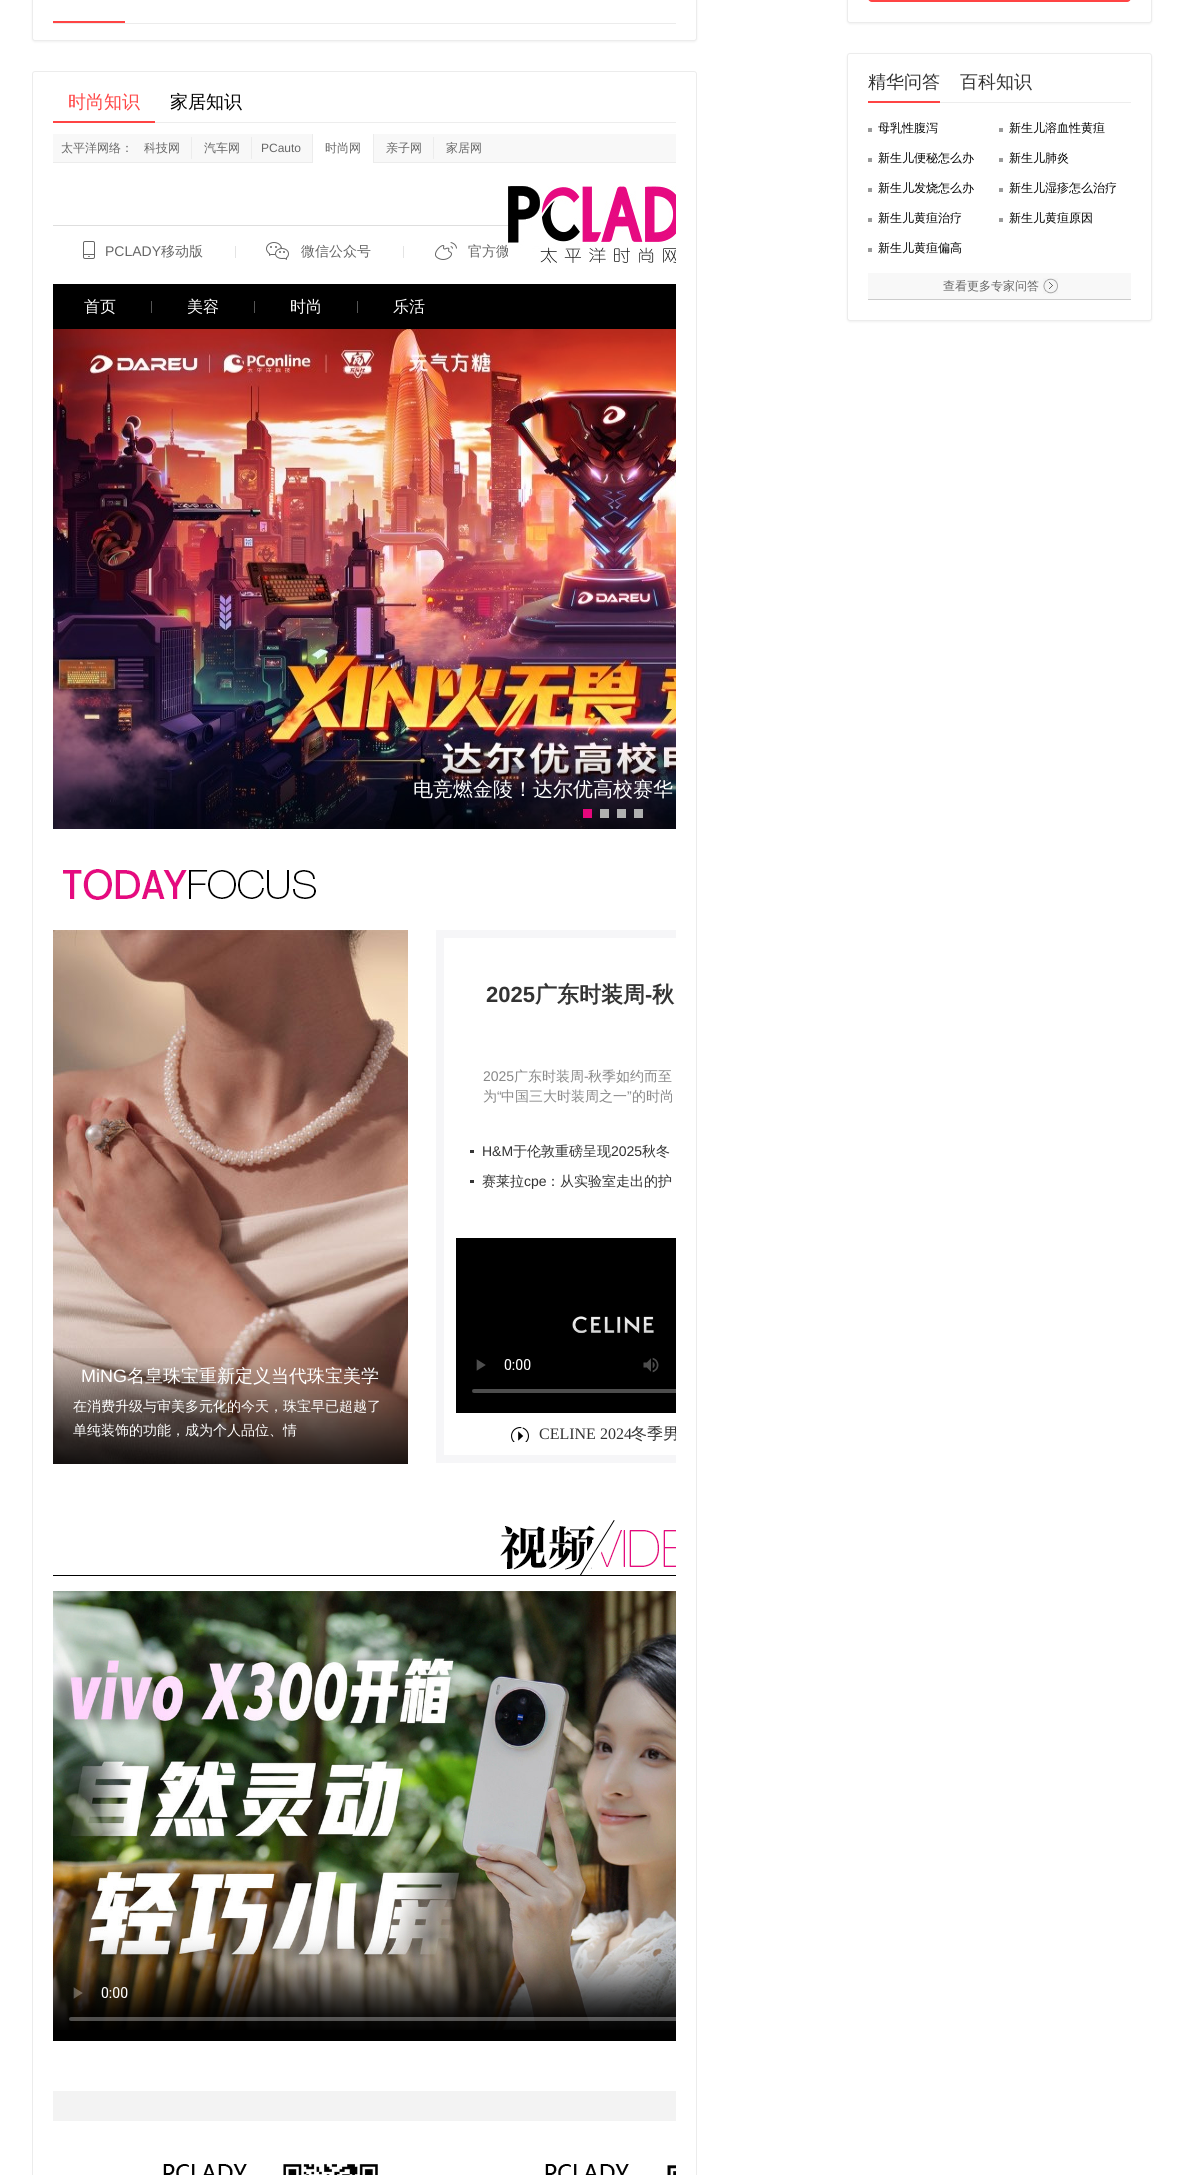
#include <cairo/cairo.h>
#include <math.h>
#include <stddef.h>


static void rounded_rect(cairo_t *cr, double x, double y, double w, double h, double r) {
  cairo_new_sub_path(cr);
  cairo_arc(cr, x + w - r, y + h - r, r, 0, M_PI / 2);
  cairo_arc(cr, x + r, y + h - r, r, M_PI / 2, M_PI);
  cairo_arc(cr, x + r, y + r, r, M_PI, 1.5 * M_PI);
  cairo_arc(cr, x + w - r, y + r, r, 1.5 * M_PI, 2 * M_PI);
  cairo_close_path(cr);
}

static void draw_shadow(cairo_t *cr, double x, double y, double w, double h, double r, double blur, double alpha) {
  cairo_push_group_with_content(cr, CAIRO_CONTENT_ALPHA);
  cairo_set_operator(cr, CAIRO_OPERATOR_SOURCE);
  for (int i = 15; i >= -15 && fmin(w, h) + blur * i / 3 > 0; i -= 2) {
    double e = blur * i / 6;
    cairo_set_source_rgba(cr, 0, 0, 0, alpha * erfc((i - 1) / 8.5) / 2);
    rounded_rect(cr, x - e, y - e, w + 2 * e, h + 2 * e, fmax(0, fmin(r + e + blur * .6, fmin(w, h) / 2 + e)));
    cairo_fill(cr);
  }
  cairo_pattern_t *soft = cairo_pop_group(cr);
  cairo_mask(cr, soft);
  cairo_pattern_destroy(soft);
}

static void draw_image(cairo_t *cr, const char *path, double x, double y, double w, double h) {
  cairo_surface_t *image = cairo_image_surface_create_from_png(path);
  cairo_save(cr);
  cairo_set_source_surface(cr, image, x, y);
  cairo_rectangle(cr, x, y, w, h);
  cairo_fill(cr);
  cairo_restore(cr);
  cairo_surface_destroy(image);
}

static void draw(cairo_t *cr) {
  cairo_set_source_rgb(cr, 1, 1, 1);
  cairo_paint(cr);
  cairo_set_source_rgb(cr, 241 / 255.0, 241 / 255.0, 241 / 255.0);
  draw_shadow(cr, 32, -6, 665, 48, 3, 1, 1);
  cairo_set_source_rgb(cr, 1, 1, 1);
  rounded_rect(cr, 32.5, -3.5, 664, 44, 2.5);
  cairo_fill_preserve(cr);
  cairo_set_source_rgb(cr, 236 / 255.0, 236 / 255.0, 236 / 255.0);
  cairo_set_line_width(cr, 1);
  cairo_stroke(cr);
  cairo_rectangle(cr, 53, 23, 623, 1);
  cairo_fill(cr);
  cairo_set_source_rgb(cr, 1, 68 / 255.0, 68 / 255.0);
  cairo_rectangle(cr, 53, 21, 72, 2);
  cairo_fill(cr);
  rounded_rect(cr, 32.5, 71.5, 664, 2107, 2.5);
  cairo_set_source_rgb(cr, 236 / 255.0, 236 / 255.0, 236 / 255.0);
  cairo_stroke(cr);
  cairo_set_source_rgb(cr, 237 / 255.0, 237 / 255.0, 237 / 255.0);
  cairo_rectangle(cr, 155, 122, 521, 1);
  cairo_fill(cr);
  cairo_set_source_rgb(cr, 1, 68 / 255.0, 68 / 255.0);
  cairo_rectangle(cr, 53, 121, 102, 2);
  cairo_fill(cr);
  cairo_set_source_rgb(cr, 248 / 255.0, 248 / 255.0, 248 / 255.0);
  cairo_rectangle(cr, 53, 134, 623, 28);
  cairo_fill(cr);
  cairo_set_source_rgb(cr, 236 / 255.0, 236 / 255.0, 236 / 255.0);
  cairo_rectangle(cr, 53, 162, 623, 1);
  cairo_fill(cr);
  cairo_rectangle(cr, 191, 137, 1, 22);
  cairo_fill(cr);
  cairo_rectangle(cr, 251, 137, 1, 22);
  cairo_fill(cr);
  cairo_set_source_rgb(cr, 1, 1, 1);
  cairo_rectangle(cr, 313, 134, 60, 29);
  cairo_fill(cr);
  cairo_set_source_rgb(cr, 236 / 255.0, 236 / 255.0, 236 / 255.0);
  cairo_rectangle(cr, 373, 134, 1, 29);
  cairo_fill(cr);
  cairo_rectangle(cr, 312, 134, 1, 29);
  cairo_fill(cr);
  cairo_rectangle(cr, 433, 137, 1, 22);
  cairo_fill(cr);
  draw_image(cr, "images/1.png", 83, 241, 12, 18);
  cairo_set_source_rgb(cr, 228 / 255.0, 228 / 255.0, 228 / 255.0);
  cairo_rectangle(cr, 235, 246, 1, 12);
  cairo_fill(cr);
  draw_image(cr, "images/2.png", 266, 242, 23, 18);
  cairo_rectangle(cr, 403, 246, 1, 12);
  cairo_fill(cr);
  draw_image(cr, "images/3.png", 435, 242, 22, 18);
  cairo_set_source_rgb(cr, 222 / 255.0, 222 / 255.0, 222 / 255.0);
  cairo_rectangle(cr, 53, 225, 455, 1);
  cairo_fill(cr);
  cairo_set_source_rgb(cr, 0, 0, 0);
  cairo_rectangle(cr, 53, 284, 623, 45);
  cairo_fill(cr);
  cairo_set_source_rgb(cr, 85 / 255.0, 85 / 255.0, 85 / 255.0);
  cairo_rectangle(cr, 151, 301, 1, 12);
  cairo_fill(cr);
  cairo_rectangle(cr, 254, 301, 1, 12);
  cairo_fill(cr);
  cairo_rectangle(cr, 357, 301, 1, 12);
  cairo_fill(cr);
  draw_image(cr, "images/5.png", 53, 329, 623, 500);
  draw_image(cr, "images/6.png", 53, 751, 623, 78);
  cairo_set_source_rgb(cr, 229 / 255.0, 7 / 255.0, 124 / 255.0);
  cairo_rectangle(cr, 583, 809, 9, 9);
  cairo_fill(cr);
  cairo_set_source_rgb(cr, 176 / 255.0, 176 / 255.0, 176 / 255.0);
  cairo_rectangle(cr, 600, 809, 9, 9);
  cairo_fill(cr);
  cairo_rectangle(cr, 617, 809, 9, 9);
  cairo_fill(cr);
  cairo_rectangle(cr, 634, 809, 9, 9);
  cairo_fill(cr);
  draw_image(cr, "images/7.png", 63, 869, 253, 31);
  draw_image(cr, "images/8.png", 53, 930, 355, 534);
  draw_image(cr, "images/9.png", 53, 1348, 355, 116);
  cairo_save(cr);
  cairo_rectangle(cr, 53, 930, 623, 534);
  cairo_clip(cr);
  cairo_rectangle(cr, 440, 934, 347, 525);
  cairo_set_source_rgb(cr, 246 / 255.0, 246 / 255.0, 248 / 255.0);
  cairo_set_line_width(cr, 8);
  cairo_stroke(cr);
  cairo_restore(cr);
  cairo_set_source_rgb(cr, 53 / 255.0, 53 / 255.0, 53 / 255.0);
  cairo_rectangle(cr, 470, 1150, 4, 3);
  cairo_fill(cr);
  cairo_rectangle(cr, 470, 1180, 4, 3);
  cairo_fill(cr);
  draw_image(cr, "images/10.png", 456, 1238, 220, 175);
  draw_image(cr, "images/11.png", 511, 1427, 18, 15);
  cairo_set_source_rgb(cr, 0, 0, 0);
  cairo_rectangle(cr, 53, 1575, 623, 1);
  cairo_fill(cr);
  draw_image(cr, "images/12.png", 500, 1520, 176, 55);
  cairo_rectangle(cr, 53, 2030, 623, 11);
  cairo_fill(cr);
  draw_image(cr, "images/13.png", 53, 1591, 623, 439);
  cairo_set_source_rgb(cr, 243 / 255.0, 243 / 255.0, 243 / 255.0);
  cairo_rectangle(cr, 53, 2091, 623, 30);
  cairo_fill(cr);
  draw_image(cr, "images/14.png", 163, 2164, 466, 11);
  draw_image(cr, "images/15.png", 283, 2164, 95, 11);
  draw_image(cr, "images/16.png", 667, 2165, 9, 10);
  cairo_set_source_rgb(cr, 241 / 255.0, 241 / 255.0, 241 / 255.0);
  draw_shadow(cr, 847, -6, 305, 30, 3, 1, 1);
  cairo_set_source_rgb(cr, 1, 1, 1);
  rounded_rect(cr, 847.5, -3.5, 304, 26, 2.5);
  cairo_fill_preserve(cr);
  cairo_set_source_rgb(cr, 236 / 255.0, 236 / 255.0, 236 / 255.0);
  cairo_stroke(cr);
  cairo_set_source_rgb(cr, 1, 68 / 255.0, 68 / 255.0);
  rounded_rect(cr, 868, -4, 263, 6, 4);
  cairo_fill(cr);
  cairo_set_source_rgb(cr, 241 / 255.0, 241 / 255.0, 241 / 255.0);
  draw_shadow(cr, 847, 54, 305, 268, 3, 1, 1);
  cairo_set_source_rgb(cr, 1, 1, 1);
  rounded_rect(cr, 847.5, 53.5, 304, 267, 2.5);
  cairo_fill_preserve(cr);
  cairo_set_source_rgb(cr, 236 / 255.0, 236 / 255.0, 236 / 255.0);
  cairo_stroke(cr);
  cairo_set_source_rgb(cr, 237 / 255.0, 237 / 255.0, 237 / 255.0);
  cairo_rectangle(cr, 940, 102, 191, 1);
  cairo_fill(cr);
  cairo_set_source_rgb(cr, 1, 68 / 255.0, 68 / 255.0);
  cairo_rectangle(cr, 868, 101, 72, 2);
  cairo_fill(cr);
  cairo_set_source_rgb(cr, 154 / 255.0, 154 / 255.0, 154 / 255.0);
  cairo_rectangle(cr, 868, 128, 4, 4);
  cairo_fill(cr);
  cairo_rectangle(cr, 999, 128, 4, 4);
  cairo_fill(cr);
  cairo_rectangle(cr, 868, 158, 4, 4);
  cairo_fill(cr);
  cairo_rectangle(cr, 999, 158, 4, 4);
  cairo_fill(cr);
  cairo_rectangle(cr, 868, 188, 4, 4);
  cairo_fill(cr);
  cairo_rectangle(cr, 999, 188, 4, 4);
  cairo_fill(cr);
  cairo_rectangle(cr, 868, 218, 4, 4);
  cairo_fill(cr);
  cairo_rectangle(cr, 999, 218, 4, 4);
  cairo_fill(cr);
  cairo_rectangle(cr, 868, 248, 4, 4);
  cairo_fill(cr);
  cairo_set_source_rgb(cr, 248 / 255.0, 248 / 255.0, 248 / 255.0);
  cairo_rectangle(cr, 868, 273, 263, 26);
  cairo_fill(cr);
  draw_image(cr, "images/17.png", 1043, 278, 15, 16);
  cairo_set_source_rgb(cr, 204 / 255.0, 204 / 255.0, 204 / 255.0);
  cairo_rectangle(cr, 868, 299, 263, 1);
  cairo_fill(cr);
  cairo_select_font_face(cr, "WenQuanYi Zen Hei Medium", CAIRO_FONT_SLANT_NORMAL, CAIRO_FONT_WEIGHT_NORMAL);
  cairo_set_font_size(cr, 18);
  cairo_set_source_rgb(cr, 1, 68 / 255.0, 68 / 255.0);
  cairo_move_to(cr, 68, 108);
  cairo_show_text(cr, "时尚知识");
  cairo_set_source_rgb(cr, 0, 0, 0);
  cairo_move_to(cr, 170, 108);
  cairo_show_text(cr, "家居知识");
  cairo_set_font_size(cr, 12);
  cairo_set_source_rgb(cr, 102 / 255.0, 102 / 255.0, 102 / 255.0);
  cairo_move_to(cr, 61, 152);
  cairo_show_text(cr, "太平洋网络：");
  cairo_move_to(cr, 144, 152);
  cairo_show_text(cr, "科技网");
  cairo_move_to(cr, 204, 152);
  cairo_show_text(cr, "汽车网");
  cairo_select_font_face(cr, "Liberation Sans", CAIRO_FONT_SLANT_NORMAL, CAIRO_FONT_WEIGHT_NORMAL);
  cairo_move_to(cr, 261, 152);
  cairo_show_text(cr, "PCauto");
  cairo_select_font_face(cr, "WenQuanYi Zen Hei Medium", CAIRO_FONT_SLANT_NORMAL, CAIRO_FONT_WEIGHT_NORMAL);
  cairo_move_to(cr, 325, 152);
  cairo_show_text(cr, "时尚网");
  cairo_move_to(cr, 386, 152);
  cairo_show_text(cr, "亲子网");
  cairo_move_to(cr, 446, 152);
  cairo_show_text(cr, "家居网");
  cairo_select_font_face(cr, "Liberation Sans", CAIRO_FONT_SLANT_NORMAL, CAIRO_FONT_WEIGHT_NORMAL);
  cairo_set_font_size(cr, 14);
  cairo_move_to(cr, 105, 256);
  cairo_show_text(cr, "PCLADY");
  cairo_select_font_face(cr, "WenQuanYi Zen Hei Medium", CAIRO_FONT_SLANT_NORMAL, CAIRO_FONT_WEIGHT_NORMAL);
  cairo_move_to(cr, 161, 256);
  cairo_show_text(cr, "移动版");
  cairo_move_to(cr, 301, 256);
  cairo_show_text(cr, "微信公众号");
  cairo_move_to(cr, 468, 256);
  cairo_show_text(cr, "官方微");
  draw_image(cr, "images/4.png", 508, 186, 168, 77);
  cairo_set_font_size(cr, 16);
  cairo_set_source_rgb(cr, 1, 1, 1);
  cairo_move_to(cr, 84, 312);
  cairo_show_text(cr, "首页");
  cairo_move_to(cr, 187, 312);
  cairo_show_text(cr, "美容");
  cairo_move_to(cr, 290, 312);
  cairo_show_text(cr, "时尚");
  cairo_move_to(cr, 393, 312);
  cairo_show_text(cr, "乐活");
  cairo_set_font_size(cr, 20);
  cairo_move_to(cr, 413, 796);
  cairo_show_text(cr, "电竞燃金陵！达尔优高校赛华");
  cairo_select_font_face(cr, "Liberation Sans", CAIRO_FONT_SLANT_NORMAL, CAIRO_FONT_WEIGHT_NORMAL);
  cairo_set_font_size(cr, 18);
  cairo_move_to(cr, 81, 1382);
  cairo_show_text(cr, "MiNG");
  cairo_select_font_face(cr, "WenQuanYi Zen Hei Medium", CAIRO_FONT_SLANT_NORMAL, CAIRO_FONT_WEIGHT_NORMAL);
  cairo_move_to(cr, 127, 1382);
  cairo_show_text(cr, "名皇珠宝重新定义当代珠宝美学");
  cairo_set_font_size(cr, 14);
  cairo_move_to(cr, 73, 1411);
  cairo_show_text(cr, "在消费升级与审美多元化的今天，珠宝早已超越了");
  cairo_move_to(cr, 73, 1435);
  cairo_show_text(cr, "单纯装饰的功能，成为个人品位、情");
  cairo_select_font_face(cr, "Liberation Sans", CAIRO_FONT_SLANT_NORMAL, CAIRO_FONT_WEIGHT_BOLD);
  cairo_set_font_size(cr, 22);
  cairo_set_source_rgb(cr, 51 / 255.0, 51 / 255.0, 51 / 255.0);
  cairo_move_to(cr, 486, 1002);
  cairo_show_text(cr, "2025");
  cairo_select_font_face(cr, "WenQuanYi Zen Hei", CAIRO_FONT_SLANT_NORMAL, CAIRO_FONT_WEIGHT_BOLD);
  cairo_move_to(cr, 535, 1002);
  cairo_show_text(cr, "广东时装周");
  cairo_select_font_face(cr, "Liberation Sans", CAIRO_FONT_SLANT_NORMAL, CAIRO_FONT_WEIGHT_BOLD);
  cairo_move_to(cr, 645, 1002);
  cairo_show_text(cr, "-");
  cairo_select_font_face(cr, "WenQuanYi Zen Hei", CAIRO_FONT_SLANT_NORMAL, CAIRO_FONT_WEIGHT_BOLD);
  cairo_move_to(cr, 652, 1002);
  cairo_show_text(cr, "秋");
  cairo_select_font_face(cr, "Liberation Sans", CAIRO_FONT_SLANT_NORMAL, CAIRO_FONT_WEIGHT_NORMAL);
  cairo_set_font_size(cr, 14);
  cairo_set_source_rgb(cr, 136 / 255.0, 136 / 255.0, 136 / 255.0);
  cairo_move_to(cr, 483, 1081);
  cairo_show_text(cr, "2025");
  cairo_select_font_face(cr, "WenQuanYi Zen Hei Medium", CAIRO_FONT_SLANT_NORMAL, CAIRO_FONT_WEIGHT_NORMAL);
  cairo_move_to(cr, 514, 1081);
  cairo_show_text(cr, "广东时装周");
  cairo_select_font_face(cr, "Liberation Sans", CAIRO_FONT_SLANT_NORMAL, CAIRO_FONT_WEIGHT_NORMAL);
  cairo_move_to(cr, 584, 1081);
  cairo_show_text(cr, "-");
  cairo_select_font_face(cr, "WenQuanYi Zen Hei Medium", CAIRO_FONT_SLANT_NORMAL, CAIRO_FONT_WEIGHT_NORMAL);
  cairo_move_to(cr, 588, 1081);
  cairo_show_text(cr, "秋季如约而至");
  cairo_move_to(cr, 483, 1101);
  cairo_show_text(cr, "为");
  cairo_select_font_face(cr, "Liberation Sans", CAIRO_FONT_SLANT_NORMAL, CAIRO_FONT_WEIGHT_NORMAL);
  cairo_move_to(cr, 497, 1101);
  cairo_show_text(cr, "“");
  cairo_select_font_face(cr, "WenQuanYi Zen Hei Medium", CAIRO_FONT_SLANT_NORMAL, CAIRO_FONT_WEIGHT_NORMAL);
  cairo_move_to(cr, 501, 1101);
  cairo_show_text(cr, "中国三大时装周之一");
  cairo_select_font_face(cr, "Liberation Sans", CAIRO_FONT_SLANT_NORMAL, CAIRO_FONT_WEIGHT_NORMAL);
  cairo_move_to(cr, 627, 1101);
  cairo_show_text(cr, "”");
  cairo_select_font_face(cr, "WenQuanYi Zen Hei Medium", CAIRO_FONT_SLANT_NORMAL, CAIRO_FONT_WEIGHT_NORMAL);
  cairo_move_to(cr, 632, 1101);
  cairo_show_text(cr, "的时尚");
  cairo_select_font_face(cr, "Liberation Sans", CAIRO_FONT_SLANT_NORMAL, CAIRO_FONT_WEIGHT_NORMAL);
  cairo_set_source_rgb(cr, 51 / 255.0, 51 / 255.0, 51 / 255.0);
  cairo_move_to(cr, 482, 1156);
  cairo_show_text(cr, "H&M");
  cairo_select_font_face(cr, "WenQuanYi Zen Hei Medium", CAIRO_FONT_SLANT_NORMAL, CAIRO_FONT_WEIGHT_NORMAL);
  cairo_move_to(cr, 513, 1156);
  cairo_show_text(cr, "于伦敦重磅呈现");
  cairo_select_font_face(cr, "Liberation Sans", CAIRO_FONT_SLANT_NORMAL, CAIRO_FONT_WEIGHT_NORMAL);
  cairo_move_to(cr, 611, 1156);
  cairo_show_text(cr, "2025");
  cairo_select_font_face(cr, "WenQuanYi Zen Hei Medium", CAIRO_FONT_SLANT_NORMAL, CAIRO_FONT_WEIGHT_NORMAL);
  cairo_move_to(cr, 642, 1156);
  cairo_show_text(cr, "秋冬");
  cairo_move_to(cr, 482, 1186);
  cairo_show_text(cr, "赛莱拉");
  cairo_select_font_face(cr, "Liberation Sans", CAIRO_FONT_SLANT_NORMAL, CAIRO_FONT_WEIGHT_NORMAL);
  cairo_move_to(cr, 524, 1186);
  cairo_show_text(cr, "cpe");
  cairo_select_font_face(cr, "WenQuanYi Zen Hei Medium", CAIRO_FONT_SLANT_NORMAL, CAIRO_FONT_WEIGHT_NORMAL);
  cairo_move_to(cr, 546, 1186);
  cairo_show_text(cr, "：从实验室走出的护");
  cairo_select_font_face(cr, "Liberation Serif", CAIRO_FONT_SLANT_NORMAL, CAIRO_FONT_WEIGHT_NORMAL);
  cairo_set_font_size(cr, 16);
  cairo_move_to(cr, 539, 1439);
  cairo_show_text(cr, "CELINE 2024");
  cairo_save(cr);
  cairo_rectangle(cr, 444, 1413, 232, 42);
  cairo_clip(cr);
  cairo_select_font_face(cr, "WenQuanYi Zen Hei Medium", CAIRO_FONT_SLANT_NORMAL, CAIRO_FONT_WEIGHT_NORMAL);
  cairo_move_to(cr, 631, 1439);
  cairo_show_text(cr, "冬季男");
  cairo_restore(cr);
  cairo_select_font_face(cr, "WenQuanYi Zen Hei Medium", CAIRO_FONT_SLANT_NORMAL, CAIRO_FONT_WEIGHT_NORMAL);
  cairo_set_font_size(cr, 18);
  cairo_move_to(cr, 868, 88);
  cairo_show_text(cr, "精华问答");
  cairo_move_to(cr, 960, 88);
  cairo_show_text(cr, "百科知识");
  cairo_set_font_size(cr, 12);
  cairo_set_source_rgb(cr, 0, 0, 0);
  cairo_move_to(cr, 878, 132);
  cairo_show_text(cr, "母乳性腹泻");
  cairo_move_to(cr, 1009, 132);
  cairo_show_text(cr, "新生儿溶血性黄疸");
  cairo_move_to(cr, 878, 162);
  cairo_show_text(cr, "新生儿便秘怎么办");
  cairo_move_to(cr, 1009, 162);
  cairo_show_text(cr, "新生儿肺炎");
  cairo_move_to(cr, 878, 192);
  cairo_show_text(cr, "新生儿发烧怎么办");
  cairo_move_to(cr, 1009, 192);
  cairo_show_text(cr, "新生儿湿疹怎么治疗");
  cairo_move_to(cr, 878, 222);
  cairo_show_text(cr, "新生儿黄疸治疗");
  cairo_move_to(cr, 1009, 222);
  cairo_show_text(cr, "新生儿黄疸原因");
  cairo_move_to(cr, 878, 252);
  cairo_show_text(cr, "新生儿黄疸偏高");
  cairo_set_source_rgb(cr, 102 / 255.0, 102 / 255.0, 102 / 255.0);
  cairo_move_to(cr, 943, 290);
  cairo_show_text(cr, "查看更多专家问答");
}

int main(void) {
  cairo_surface_t *surface = cairo_image_surface_create(CAIRO_FORMAT_RGB24, 1183, 2175);
  cairo_t *cr = cairo_create(surface);
  cairo_font_options_t *options = cairo_font_options_create();
  cairo_font_options_set_hint_metrics(options, CAIRO_HINT_METRICS_OFF);
  cairo_font_options_set_hint_style(options, CAIRO_HINT_STYLE_NONE);
  cairo_set_font_options(cr, options);
  cairo_set_miter_limit(cr, 4);
  draw(cr);
  cairo_surface_write_to_png(surface, "out.png");
  cairo_font_options_destroy(options);
  cairo_destroy(cr);
  cairo_surface_destroy(surface);
  return 0;
}
